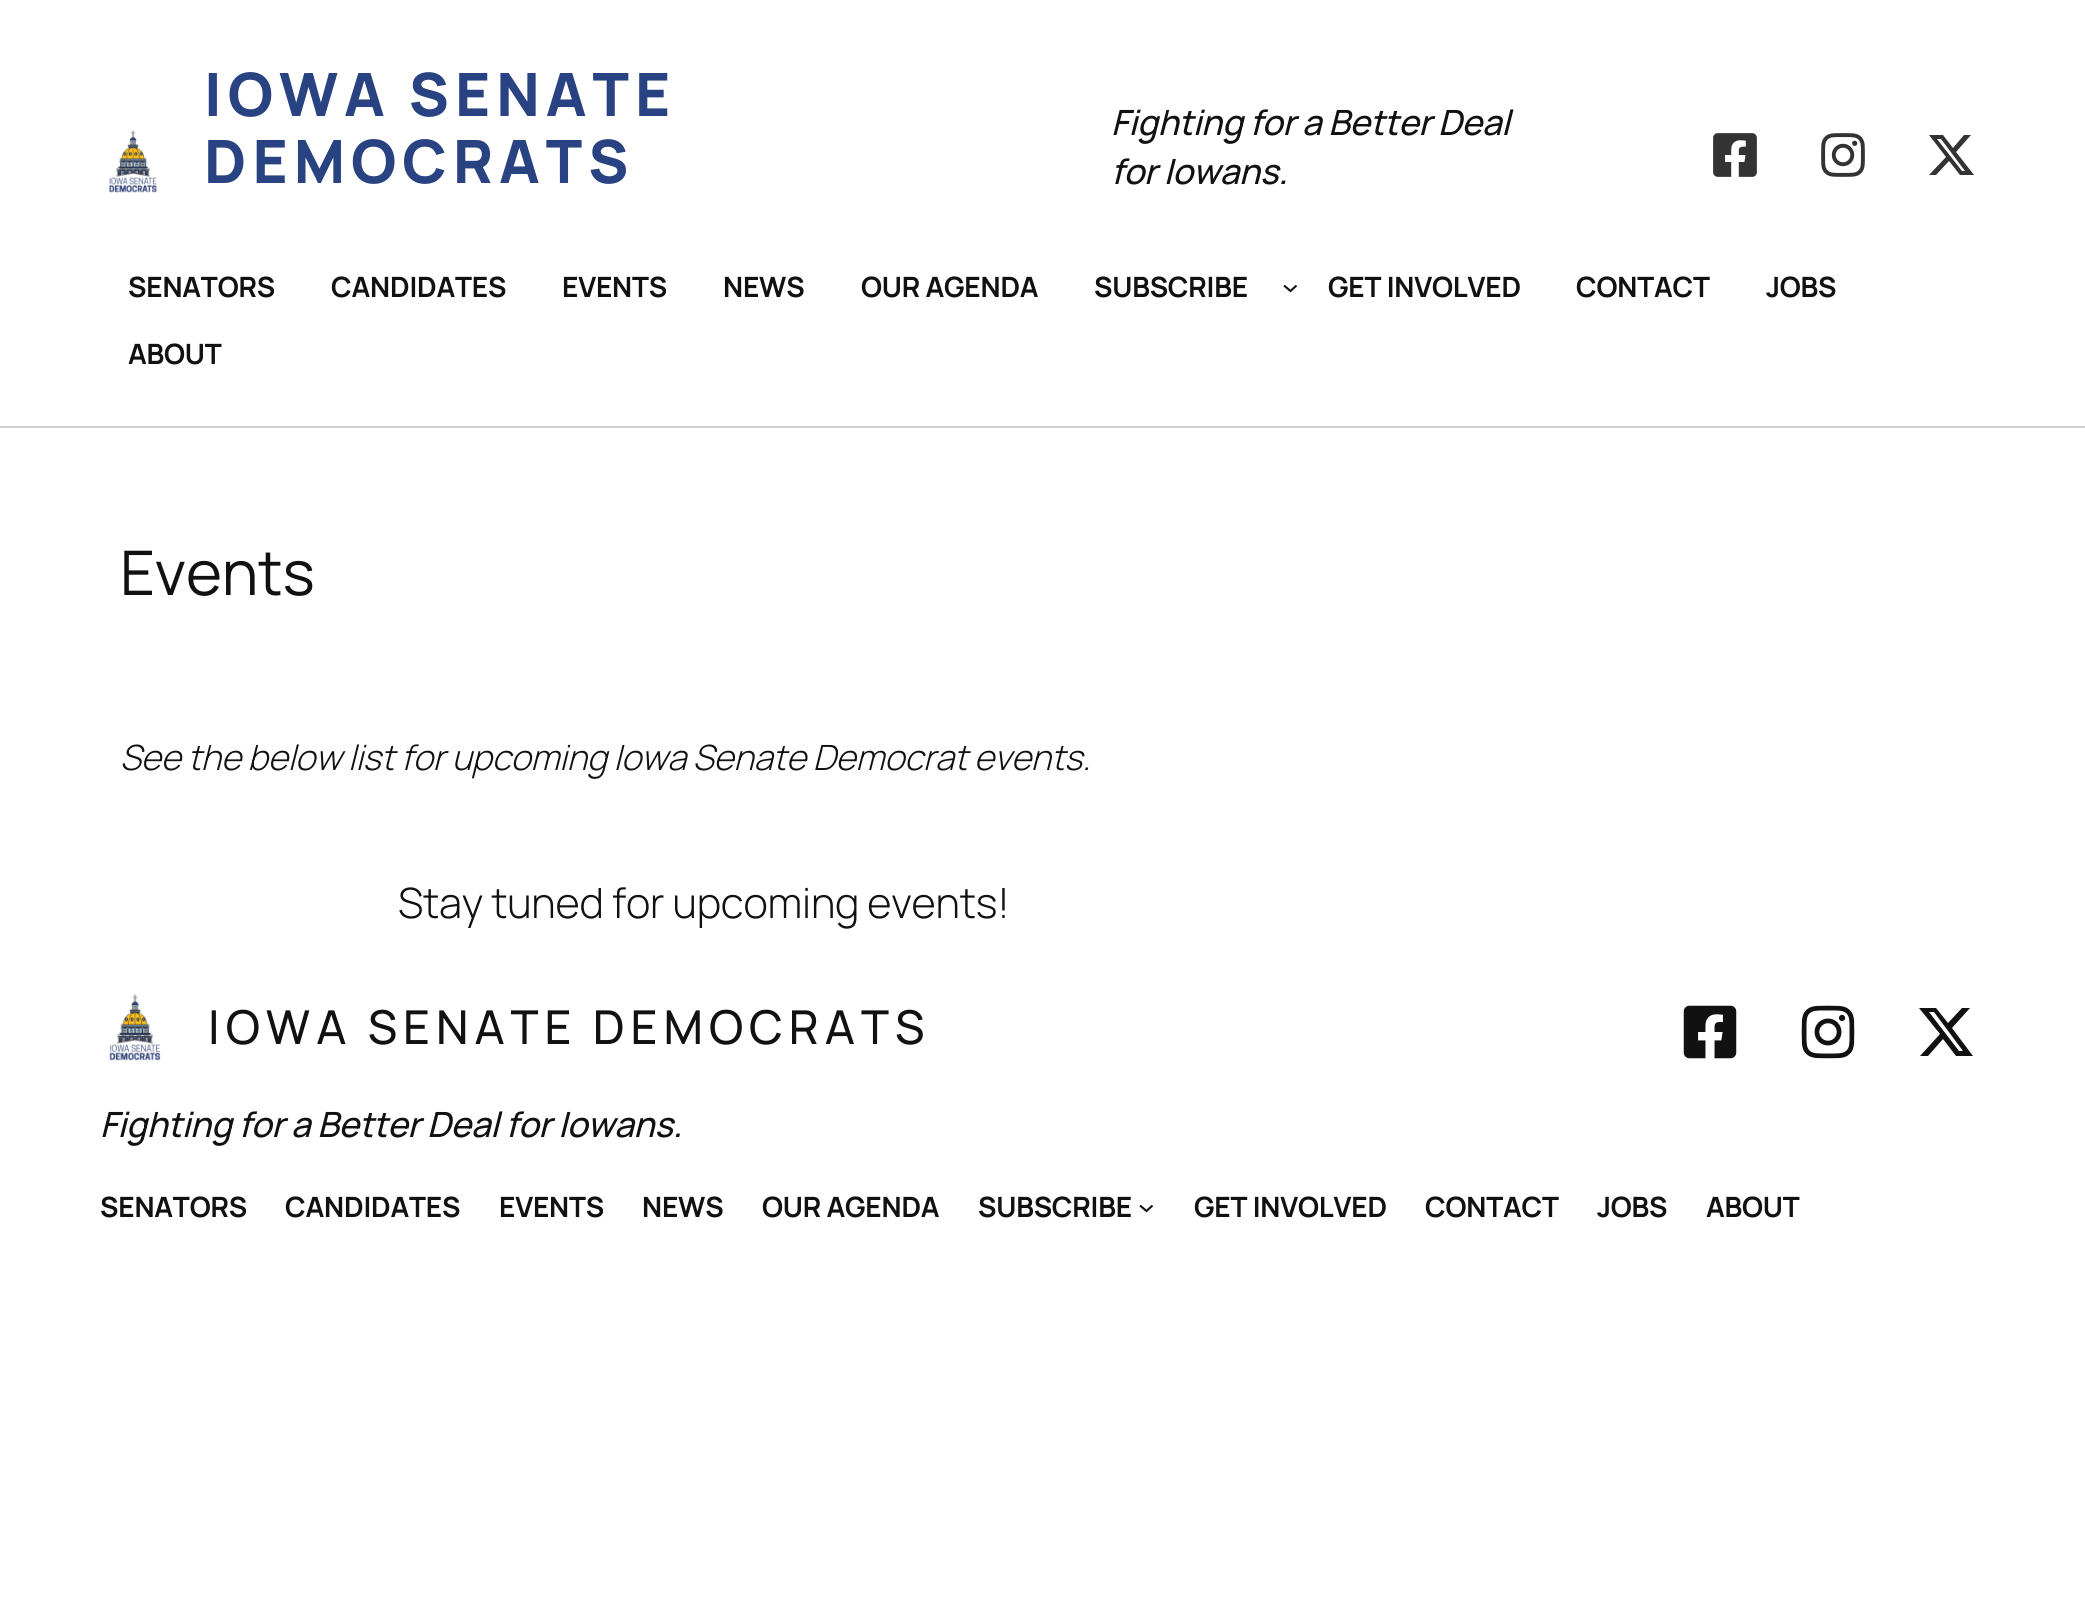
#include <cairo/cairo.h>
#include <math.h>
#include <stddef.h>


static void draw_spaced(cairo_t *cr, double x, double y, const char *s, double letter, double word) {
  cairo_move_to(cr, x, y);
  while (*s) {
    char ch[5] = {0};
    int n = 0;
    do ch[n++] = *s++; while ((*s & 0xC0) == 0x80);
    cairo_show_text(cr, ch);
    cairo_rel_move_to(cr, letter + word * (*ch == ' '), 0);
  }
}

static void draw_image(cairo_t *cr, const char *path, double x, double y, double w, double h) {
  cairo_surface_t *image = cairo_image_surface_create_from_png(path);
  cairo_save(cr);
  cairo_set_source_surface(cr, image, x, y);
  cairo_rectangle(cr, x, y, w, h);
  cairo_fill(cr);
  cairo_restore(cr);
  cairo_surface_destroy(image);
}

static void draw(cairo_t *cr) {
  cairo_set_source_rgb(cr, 1, 1, 1);
  cairo_paint(cr);
  draw_image(cr, "images/1.png", 108, 129, 50, 64);
  draw_image(cr, "images/2.png", 1713, 133, 44, 44);
  draw_image(cr, "images/3.png", 1821, 133, 44, 44);
  cairo_set_source_rgb(cr, 51 / 255.0, 51 / 255.0, 51 / 255.0);
  cairo_new_path(cr);
  cairo_move_to(cr, 1964, 135);
  cairo_line_to(cr, 1971, 135);
  cairo_line_to(cr, 1956, 152);
  cairo_line_to(cr, 1974, 175);
  cairo_line_to(cr, 1960, 175);
  cairo_line_to(cr, 1949, 161);
  cairo_line_to(cr, 1936, 175);
  cairo_line_to(cr, 1929, 175);
  cairo_line_to(cr, 1946, 157);
  cairo_line_to(cr, 1929, 135);
  cairo_line_to(cr, 1943, 135);
  cairo_line_to(cr, 1953, 148);
  cairo_close_path(cr);
  cairo_move_to(cr, 1962, 171);
  cairo_line_to(cr, 1965, 171);
  cairo_line_to(cr, 1941, 139);
  cairo_line_to(cr, 1937, 139);
  cairo_close_path(cr);
  cairo_fill(cr);
  cairo_new_path(cr);
  cairo_move_to(cr, 1284, 285.5);
  cairo_line_to(cr, 1290.5, 291);
  cairo_line_to(cr, 1296.5, 285.5);
  cairo_set_source_rgb(cr, 17 / 255.0, 17 / 255.0, 17 / 255.0);
  cairo_set_line_width(cr, 2.1);
  cairo_stroke(cr);
  cairo_set_source_rgb(cr, 207 / 255.0, 207 / 255.0, 207 / 255.0);
  cairo_rectangle(cr, 0, 426, 2085, 2);
  cairo_fill(cr);
  draw_image(cr, "images/4.png", 109, 994, 52, 67);
  draw_image(cr, "images/5.png", 1683, 1005, 54, 54);
  draw_image(cr, "images/6.png", 1801, 1005, 54, 54);
  cairo_set_source_rgb(cr, 17 / 255.0, 17 / 255.0, 17 / 255.0);
  cairo_new_path(cr);
  cairo_move_to(cr, 1962, 1008);
  cairo_line_to(cr, 1970, 1008);
  cairo_line_to(cr, 1952, 1028);
  cairo_line_to(cr, 1973, 1056);
  cairo_line_to(cr, 1956, 1056);
  cairo_line_to(cr, 1943, 1039);
  cairo_line_to(cr, 1928, 1056);
  cairo_line_to(cr, 1920, 1056);
  cairo_line_to(cr, 1940, 1034);
  cairo_line_to(cr, 1919, 1008);
  cairo_line_to(cr, 1936, 1008);
  cairo_line_to(cr, 1948, 1023);
  cairo_close_path(cr);
  cairo_move_to(cr, 1959, 1051);
  cairo_line_to(cr, 1963, 1051);
  cairo_line_to(cr, 1934, 1012);
  cairo_line_to(cr, 1929, 1012);
  cairo_close_path(cr);
  cairo_fill(cr);
  cairo_new_path(cr);
  cairo_move_to(cr, 1140, 1205.5);
  cairo_line_to(cr, 1146.5, 1211);
  cairo_line_to(cr, 1152.5, 1205.5);
  cairo_stroke(cr);
  cairo_select_font_face(cr, "Manrope ExtraBold", CAIRO_FONT_SLANT_NORMAL, CAIRO_FONT_WEIGHT_NORMAL);
  cairo_set_font_size(cr, 59.75);
  cairo_set_source_rgb(cr, 41 / 255.0, 66 / 255.0, 129 / 255.0);
  draw_spaced(cr, 204, 116, "IOWA SENATE", 6, 0);
  draw_spaced(cr, 204, 183, "DEMOCRATS", 6, 0);
  cairo_select_font_face(cr, "Manrope Medium", CAIRO_FONT_SLANT_ITALIC, CAIRO_FONT_WEIGHT_NORMAL);
  cairo_set_font_size(cr, 34.8);
  cairo_set_source_rgb(cr, 17 / 255.0, 17 / 255.0, 17 / 255.0);
  draw_spaced(cr, 1111, 135, "Fighting for a Better Deal", -0.2, 0);
  draw_spaced(cr, 1111, 184, "for Iowans.", -0.2, 0);
  cairo_select_font_face(cr, "Manrope", CAIRO_FONT_SLANT_NORMAL, CAIRO_FONT_WEIGHT_BOLD);
  cairo_set_font_size(cr, 28);
  draw_spaced(cr, 128, 297, "SENATORS", -0.2, 0);
  draw_spaced(cr, 331, 297, "CANDIDATES", -0.2, 0);
  draw_spaced(cr, 562, 297, "EVENTS", -0.2, 0);
  draw_spaced(cr, 723, 297, "NEWS", -0.2, 0);
  draw_spaced(cr, 861, 297, "OUR AGENDA", -0.2, 0);
  draw_spaced(cr, 1094, 297, "SUBSCRIBE", -0.2, 0);
  draw_spaced(cr, 1328, 297, "GET INVOLVED", -0.2, 0);
  draw_spaced(cr, 1576, 297, "CONTACT", -0.2, 0);
  draw_spaced(cr, 1766, 297, "JOBS", -0.2, 0);
  draw_spaced(cr, 128, 364, "ABOUT", -0.2, 0);
  cairo_select_font_face(cr, "Manrope", CAIRO_FONT_SLANT_NORMAL, CAIRO_FONT_WEIGHT_NORMAL);
  cairo_set_font_size(cr, 61.5);
  draw_spaced(cr, 120, 595, "Events", -0.2, 0);
  cairo_select_font_face(cr, "Manrope Light", CAIRO_FONT_SLANT_ITALIC, CAIRO_FONT_WEIGHT_NORMAL);
  cairo_set_font_size(cr, 34.8);
  draw_spaced(cr, 120, 770, "See the below list for upcoming Iowa Senate Democrat events.", -0.2, 0);
  cairo_select_font_face(cr, "Manrope Light", CAIRO_FONT_SLANT_NORMAL, CAIRO_FONT_WEIGHT_NORMAL);
  cairo_set_font_size(cr, 41.7);
  draw_spaced(cr, 398, 918, "Stay tuned for upcoming events!", -0.2, 0);
  cairo_select_font_face(cr, "Manrope Medium", CAIRO_FONT_SLANT_NORMAL, CAIRO_FONT_WEIGHT_NORMAL);
  cairo_set_font_size(cr, 46.7);
  draw_spaced(cr, 208, 1044, "IOWA SENATE DEMOCRATS", 6, 0);
  cairo_select_font_face(cr, "Manrope Medium", CAIRO_FONT_SLANT_ITALIC, CAIRO_FONT_WEIGHT_NORMAL);
  cairo_set_font_size(cr, 34.8);
  draw_spaced(cr, 100, 1137, "Fighting for a Better Deal for Iowans.", -0.2, 0);
  cairo_select_font_face(cr, "Manrope", CAIRO_FONT_SLANT_NORMAL, CAIRO_FONT_WEIGHT_BOLD);
  cairo_set_font_size(cr, 28);
  draw_spaced(cr, 100, 1217, "SENATORS", -0.2, 0);
  draw_spaced(cr, 285, 1217, "CANDIDATES", -0.2, 0);
  draw_spaced(cr, 499, 1217, "EVENTS", -0.2, 0);
  draw_spaced(cr, 642, 1217, "NEWS", -0.2, 0);
  draw_spaced(cr, 762, 1217, "OUR AGENDA", -0.2, 0);
  draw_spaced(cr, 978, 1217, "SUBSCRIBE", -0.2, 0);
  draw_spaced(cr, 1194, 1217, "GET INVOLVED", -0.2, 0);
  draw_spaced(cr, 1425, 1217, "CONTACT", -0.2, 0);
  draw_spaced(cr, 1597, 1217, "JOBS", -0.2, 0);
  draw_spaced(cr, 1706, 1217, "ABOUT", -0.2, 0);
}

int main(void) {
  cairo_surface_t *surface = cairo_image_surface_create(CAIRO_FORMAT_RGB24, 2085, 1607);
  cairo_t *cr = cairo_create(surface);
  cairo_font_options_t *options = cairo_font_options_create();
  cairo_font_options_set_hint_metrics(options, CAIRO_HINT_METRICS_OFF);
  cairo_font_options_set_hint_style(options, CAIRO_HINT_STYLE_NONE);
  cairo_set_font_options(cr, options);
  cairo_set_miter_limit(cr, 4);
  draw(cr);
  cairo_surface_write_to_png(surface, "out.png");
  cairo_font_options_destroy(options);
  cairo_destroy(cr);
  cairo_surface_destroy(surface);
  return 0;
}
